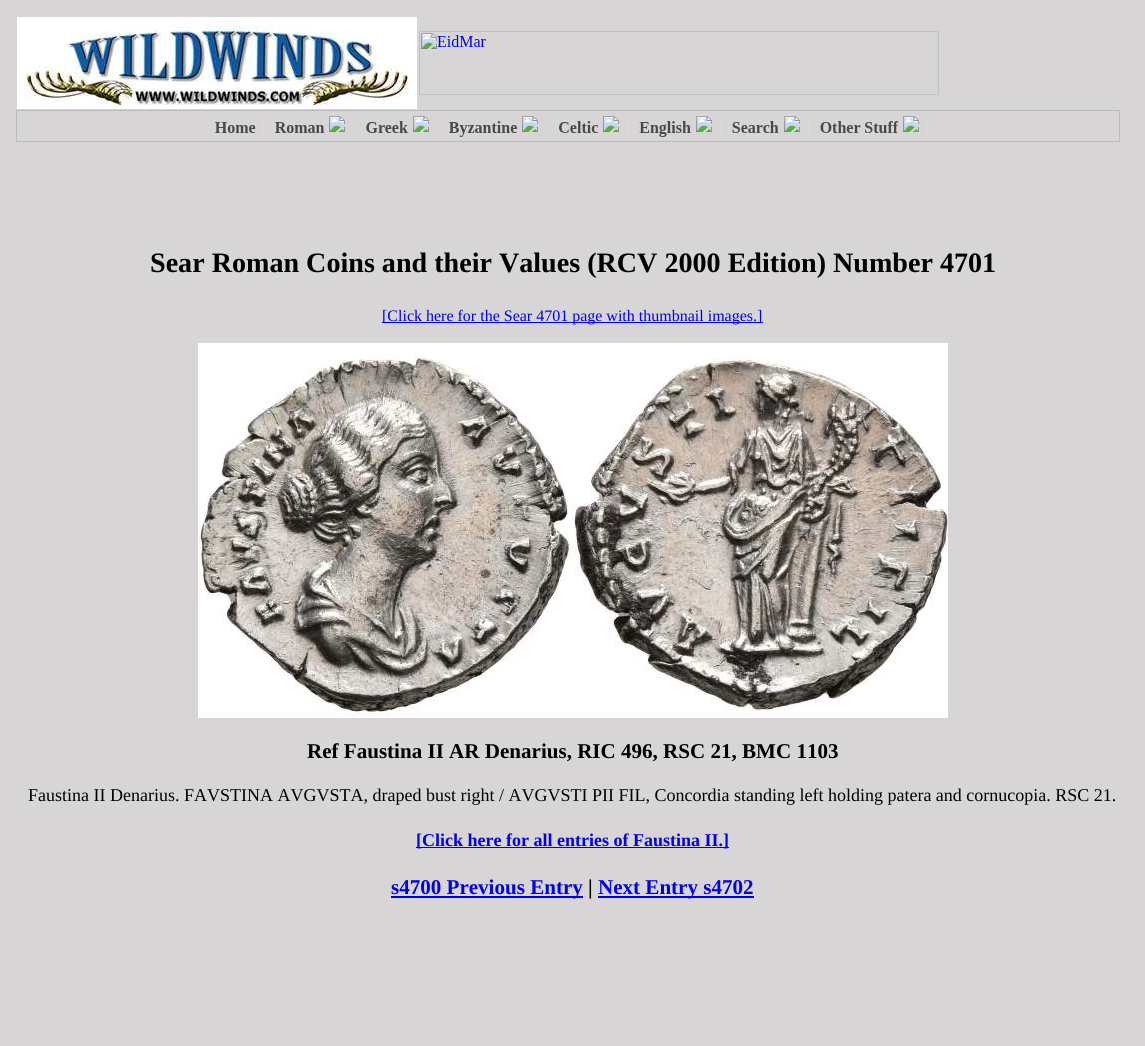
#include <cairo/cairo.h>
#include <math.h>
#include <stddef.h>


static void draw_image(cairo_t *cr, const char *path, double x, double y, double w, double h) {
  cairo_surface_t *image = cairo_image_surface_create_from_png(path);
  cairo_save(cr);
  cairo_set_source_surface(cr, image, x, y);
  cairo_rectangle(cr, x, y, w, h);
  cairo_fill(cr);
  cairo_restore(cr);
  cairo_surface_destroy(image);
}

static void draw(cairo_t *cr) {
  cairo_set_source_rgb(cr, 215 / 255.0, 213 / 255.0, 213 / 255.0);
  cairo_paint(cr);
  draw_image(cr, "images/1.png", 16, 17, 1104, 125);
  cairo_set_source_rgb(cr, 0, 0, 238 / 255.0);
  cairo_rectangle(cr, 382, 322, 381, 1);
  cairo_fill(cr);
  draw_image(cr, "images/2.png", 198, 343, 750, 375);
  cairo_rectangle(cr, 416, 847, 313, 1);
  cairo_fill(cr);
  cairo_rectangle(cr, 391, 896, 192, 2);
  cairo_fill(cr);
  cairo_rectangle(cr, 598, 896, 156, 2);
  cairo_fill(cr);
  cairo_select_font_face(cr, "Liberation Serif", CAIRO_FONT_SLANT_NORMAL, CAIRO_FONT_WEIGHT_BOLD);
  cairo_set_font_size(cr, 28.1);
  cairo_set_source_rgb(cr, 0, 0, 0);
  cairo_move_to(cr, 150, 272);
  cairo_show_text(cr, "Sear Roman Coins and their Values (RCV 2000 Edition) Number 4701");
  cairo_select_font_face(cr, "Liberation Serif", CAIRO_FONT_SLANT_NORMAL, CAIRO_FONT_WEIGHT_NORMAL);
  cairo_set_font_size(cr, 16);
  cairo_set_source_rgb(cr, 0, 0, 238 / 255.0);
  cairo_move_to(cr, 382, 321);
  cairo_show_text(cr, "[Click here for the Sear 4701 page with thumbnail images.]");
  cairo_select_font_face(cr, "Liberation Serif", CAIRO_FONT_SLANT_NORMAL, CAIRO_FONT_WEIGHT_BOLD);
  cairo_set_font_size(cr, 21.05);
  cairo_set_source_rgb(cr, 0, 0, 0);
  cairo_move_to(cr, 307, 758);
  cairo_show_text(cr, "Ref Faustina II AR Denarius, RIC 496, RSC 21, BMC 1103");
  cairo_select_font_face(cr, "Liberation Serif", CAIRO_FONT_SLANT_NORMAL, CAIRO_FONT_WEIGHT_NORMAL);
  cairo_set_font_size(cr, 18);
  cairo_move_to(cr, 28, 801);
  cairo_show_text(cr, "Faustina II Denarius. FAVSTINA AVGVSTA, draped bust right / AVGVSTI PII FIL, Concordia standing left holding patera and cornucopia. RSC 21.");
  cairo_select_font_face(cr, "Liberation Serif", CAIRO_FONT_SLANT_NORMAL, CAIRO_FONT_WEIGHT_BOLD);
  cairo_set_source_rgb(cr, 0, 0, 238 / 255.0);
  cairo_move_to(cr, 416, 846);
  cairo_show_text(cr, "[Click here for all entries of Faustina II.]");
  cairo_set_font_size(cr, 21.05);
  cairo_move_to(cr, 391, 894);
  cairo_show_text(cr, "s4700 Previous Entry");
  cairo_set_source_rgb(cr, 0, 0, 0);
  cairo_move_to(cr, 588, 894);
  cairo_show_text(cr, "|");
  cairo_set_source_rgb(cr, 0, 0, 238 / 255.0);
  cairo_move_to(cr, 598, 894);
  cairo_show_text(cr, "Next Entry s4702");
}

int main(void) {
  cairo_surface_t *surface = cairo_image_surface_create(CAIRO_FORMAT_RGB24, 1145, 1046);
  cairo_t *cr = cairo_create(surface);
  cairo_font_options_t *options = cairo_font_options_create();
  cairo_font_options_set_hint_metrics(options, CAIRO_HINT_METRICS_OFF);
  cairo_font_options_set_hint_style(options, CAIRO_HINT_STYLE_NONE);
  cairo_set_font_options(cr, options);
  cairo_set_miter_limit(cr, 4);
  draw(cr);
  cairo_surface_write_to_png(surface, "out.png");
  cairo_font_options_destroy(options);
  cairo_destroy(cr);
  cairo_surface_destroy(surface);
  return 0;
}
